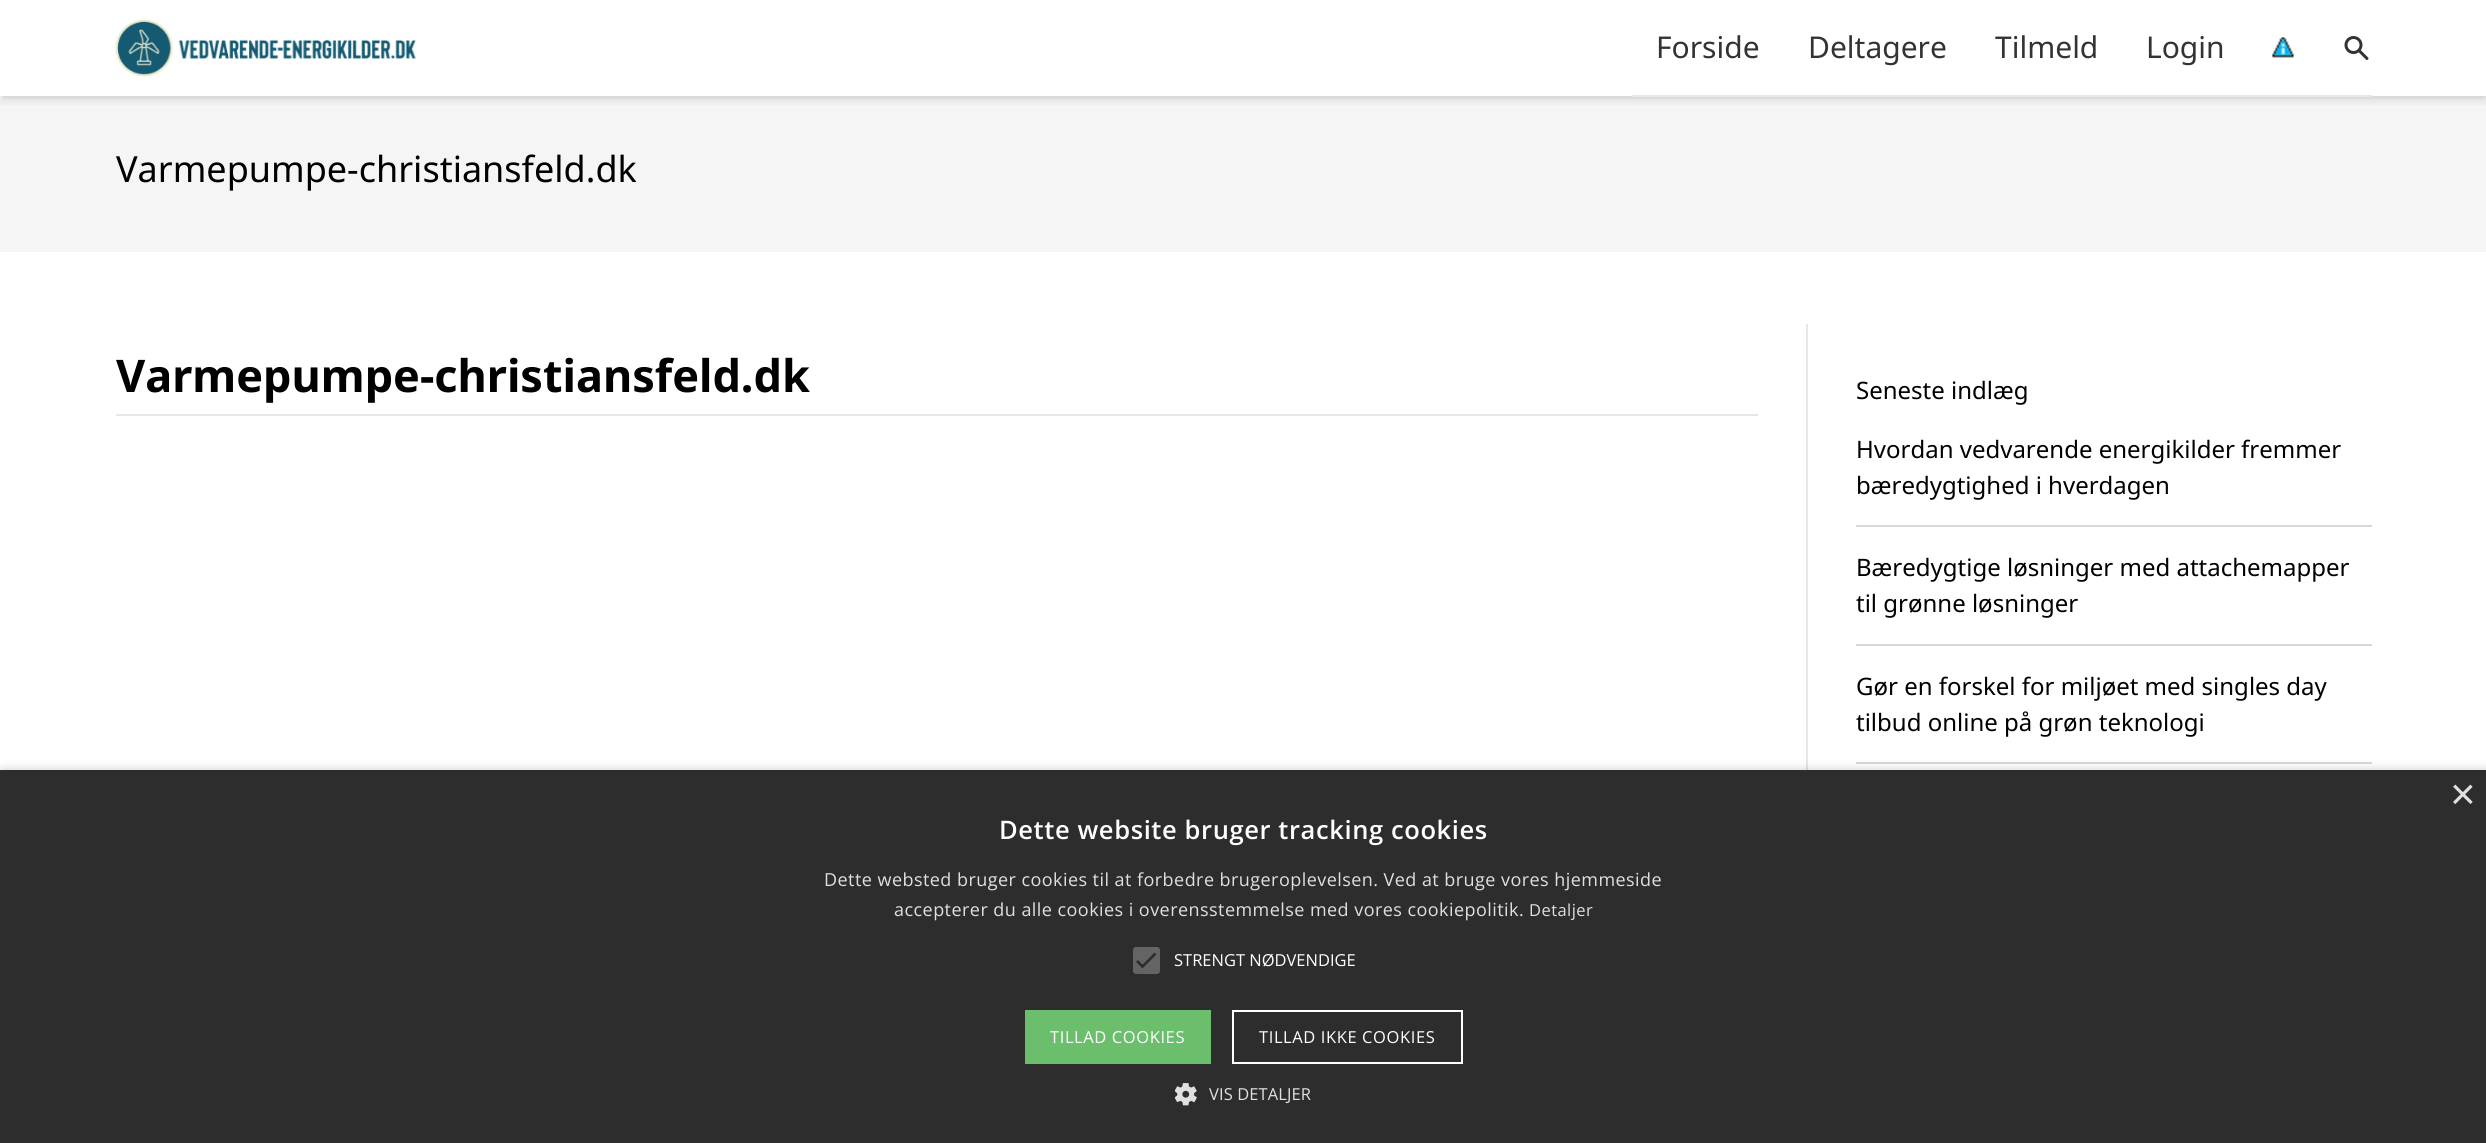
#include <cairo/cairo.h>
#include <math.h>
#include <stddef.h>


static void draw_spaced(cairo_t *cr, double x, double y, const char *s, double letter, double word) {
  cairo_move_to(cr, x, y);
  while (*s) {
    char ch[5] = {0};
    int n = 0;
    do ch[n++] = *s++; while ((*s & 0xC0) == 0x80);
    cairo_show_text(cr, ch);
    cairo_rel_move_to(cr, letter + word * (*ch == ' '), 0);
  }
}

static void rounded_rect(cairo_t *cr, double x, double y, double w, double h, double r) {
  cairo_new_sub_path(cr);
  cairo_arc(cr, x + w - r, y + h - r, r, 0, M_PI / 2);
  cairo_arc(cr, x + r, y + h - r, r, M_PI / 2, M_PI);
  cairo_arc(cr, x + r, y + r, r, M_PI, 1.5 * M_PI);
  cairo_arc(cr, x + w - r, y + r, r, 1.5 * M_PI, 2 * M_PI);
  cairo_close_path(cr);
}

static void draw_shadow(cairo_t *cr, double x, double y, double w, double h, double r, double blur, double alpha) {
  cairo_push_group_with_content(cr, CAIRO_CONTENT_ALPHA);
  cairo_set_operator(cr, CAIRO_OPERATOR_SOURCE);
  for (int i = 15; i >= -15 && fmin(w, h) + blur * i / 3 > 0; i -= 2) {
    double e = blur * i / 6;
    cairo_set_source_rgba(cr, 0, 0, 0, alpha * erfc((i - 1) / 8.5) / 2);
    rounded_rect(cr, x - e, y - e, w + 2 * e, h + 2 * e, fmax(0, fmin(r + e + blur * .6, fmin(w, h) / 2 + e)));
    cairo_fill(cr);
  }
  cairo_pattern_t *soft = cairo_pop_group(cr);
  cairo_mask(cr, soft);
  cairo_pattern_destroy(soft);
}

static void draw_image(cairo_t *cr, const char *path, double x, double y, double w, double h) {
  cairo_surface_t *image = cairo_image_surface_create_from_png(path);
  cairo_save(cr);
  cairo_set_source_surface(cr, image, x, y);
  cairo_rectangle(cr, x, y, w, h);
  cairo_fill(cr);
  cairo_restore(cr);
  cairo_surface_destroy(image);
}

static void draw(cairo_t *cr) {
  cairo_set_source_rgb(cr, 1, 1, 1);
  cairo_paint(cr);
  cairo_set_source_rgb(cr, 245 / 255.0, 245 / 255.0, 245 / 255.0);
  cairo_rectangle(cr, 0, 96, 2486, 156);
  cairo_fill(cr);
  cairo_save(cr);
  cairo_rectangle(cr, 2, 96, 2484, 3);
  cairo_clip(cr);
  cairo_set_source_rgb(cr, 0, 0, 0);
  draw_shadow(cr, 2, 5, 2484, 93, 0, 3, 0.06);
  cairo_restore(cr);
  cairo_save(cr);
  cairo_rectangle(cr, 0, 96, 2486, 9);
  cairo_clip(cr);
  cairo_set_source_rgb(cr, 0, 0, 0);
  draw_shadow(cr, 2, 8, 2484, 93, 0, 4.5, 0.1);
  cairo_restore(cr);
  draw_image(cr, "images/1.png", 115, 19, 301, 58);
  cairo_set_source_rgb(cr, 229 / 255.0, 231 / 255.0, 235 / 255.0);
  cairo_rectangle(cr, 1632, 95, 740, 2);
  cairo_fill(cr);
  draw_image(cr, "images/2.png", 2272, 37, 22, 21);
  draw_image(cr, "images/3.png", 2344, 36, 25, 24);
  cairo_rectangle(cr, 1806, 324, 2, 446);
  cairo_fill(cr);
  cairo_rectangle(cr, 116, 414, 1642, 2);
  cairo_fill(cr);
  cairo_set_source_rgb(cr, 215 / 255.0, 215 / 255.0, 215 / 255.0);
  cairo_rectangle(cr, 1856, 525, 516, 2);
  cairo_fill(cr);
  cairo_rectangle(cr, 1856, 644, 516, 2);
  cairo_fill(cr);
  cairo_rectangle(cr, 1856, 762, 516, 2);
  cairo_fill(cr);
  cairo_set_source_rgb(cr, 0, 0, 0);
  draw_shadow(cr, 2, 773, 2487, 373, 0, 6, 0.35);
  cairo_set_source_rgb(cr, 45 / 255.0, 45 / 255.0, 45 / 255.0);
  cairo_rectangle(cr, 0, 770, 2486, 373);
  cairo_fill(cr);
  cairo_set_source_rgb(cr, 100 / 255.0, 100 / 255.0, 100 / 255.0);
  rounded_rect(cr, 1133, 947, 27, 27, 3);
  cairo_fill(cr);
  cairo_new_path(cr);
  cairo_move_to(cr, 1137, 961);
  cairo_line_to(cr, 1142.5, 966.5);
  cairo_line_to(cr, 1155.5, 953.5);
  cairo_set_source_rgb(cr, 45 / 255.0, 45 / 255.0, 45 / 255.0);
  cairo_set_line_width(cr, 2.7);
  cairo_stroke(cr);
  cairo_set_source_rgb(cr, 107 / 255.0, 190 / 255.0, 107 / 255.0);
  cairo_rectangle(cr, 1025, 1010, 186, 54);
  cairo_fill(cr);
  cairo_rectangle(cr, 1233, 1011, 229, 52);
  cairo_set_source_rgb(cr, 1, 1, 1);
  cairo_set_line_width(cr, 2);
  cairo_stroke(cr);
  draw_image(cr, "images/4.png", 1175, 1083, 22, 23);
  cairo_select_font_face(cr, "Noto Sans", CAIRO_FONT_SLANT_NORMAL, CAIRO_FONT_WEIGHT_NORMAL);
  cairo_set_font_size(cr, 30);
  cairo_set_source_rgb(cr, 51 / 255.0, 51 / 255.0, 51 / 255.0);
  cairo_move_to(cr, 1656, 58);
  cairo_show_text(cr, "Forside");
  cairo_move_to(cr, 1808, 58);
  cairo_show_text(cr, "Deltagere");
  cairo_move_to(cr, 1995, 58);
  cairo_show_text(cr, "Tilmeld");
  cairo_move_to(cr, 2146, 58);
  cairo_show_text(cr, "Login");
  cairo_set_font_size(cr, 36);
  cairo_set_source_rgb(cr, 0, 0, 0);
  cairo_move_to(cr, 116, 182);
  cairo_show_text(cr, "Varmepumpe-christiansfeld.dk");
  cairo_select_font_face(cr, "Noto Sans", CAIRO_FONT_SLANT_NORMAL, CAIRO_FONT_WEIGHT_BOLD);
  cairo_set_font_size(cr, 45);
  cairo_move_to(cr, 116, 392);
  cairo_show_text(cr, "Varmepumpe-christiansfeld.dk");
  cairo_select_font_face(cr, "Noto Sans", CAIRO_FONT_SLANT_NORMAL, CAIRO_FONT_WEIGHT_NORMAL);
  cairo_set_font_size(cr, 24);
  cairo_move_to(cr, 1856, 399);
  cairo_show_text(cr, "Seneste indlæg");
  cairo_move_to(cr, 1856, 458);
  cairo_show_text(cr, "Hvordan vedvarende energikilder fremmer");
  cairo_move_to(cr, 1856, 494);
  cairo_show_text(cr, "bæredygtighed i hverdagen");
  cairo_move_to(cr, 1856, 576);
  cairo_show_text(cr, "Bæredygtige løsninger med attachemapper");
  cairo_move_to(cr, 1856, 612);
  cairo_show_text(cr, "til grønne løsninger");
  cairo_move_to(cr, 1856, 695);
  cairo_show_text(cr, "Gør en forskel for miljøet med singles day");
  cairo_move_to(cr, 1856, 731);
  cairo_show_text(cr, "tilbud online på grøn teknologi");
  cairo_select_font_face(cr, "Liberation Sans", CAIRO_FONT_SLANT_NORMAL, CAIRO_FONT_WEIGHT_NORMAL);
  cairo_set_font_size(cr, 44);
  cairo_set_source_rgb(cr, 224 / 255.0, 224 / 255.0, 224 / 255.0);
  cairo_move_to(cr, 2450, 809);
  cairo_show_text(cr, "×");
  cairo_select_font_face(cr, "Open Sans SemiBold", CAIRO_FONT_SLANT_NORMAL, CAIRO_FONT_WEIGHT_NORMAL);
  cairo_set_font_size(cr, 25.5);
  cairo_set_source_rgb(cr, 1, 1, 1);
  draw_spaced(cr, 999, 839, "Dette website bruger tracking cookies", 0.6, 0);
  cairo_select_font_face(cr, "Open Sans", CAIRO_FONT_SLANT_NORMAL, CAIRO_FONT_WEIGHT_NORMAL);
  cairo_set_font_size(cr, 18);
  cairo_set_source_rgb(cr, 224 / 255.0, 224 / 255.0, 224 / 255.0);
  draw_spaced(cr, 824, 886, "Dette websted bruger cookies til at forbedre brugeroplevelsen. Ved at bruge vores hjemmeside", 0.45, 0);
  draw_spaced(cr, 894, 916, "accepterer du alle cookies i overensstemmelse med vores cookiepolitik.", 0.45, 0);
  cairo_set_font_size(cr, 16.5);
  draw_spaced(cr, 1529, 916, "Detaljer", 0.45, 0);
  cairo_set_source_rgb(cr, 1, 1, 1);
  cairo_move_to(cr, 1174, 966);
  cairo_show_text(cr, "STRENGT NØDVENDIGE");
  draw_spaced(cr, 1050, 1043, "TILLAD COOKIES", 0.6, 0);
  draw_spaced(cr, 1259, 1043, "TILLAD IKKE COOKIES", 0.6, 0);
  cairo_set_source_rgb(cr, 224 / 255.0, 224 / 255.0, 224 / 255.0);
  draw_spaced(cr, 1209, 1100, "VIS DETALJER", 0.1, 0);
}

int main(void) {
  cairo_surface_t *surface = cairo_image_surface_create(CAIRO_FORMAT_RGB24, 2486, 1143);
  cairo_t *cr = cairo_create(surface);
  cairo_font_options_t *options = cairo_font_options_create();
  cairo_font_options_set_hint_metrics(options, CAIRO_HINT_METRICS_OFF);
  cairo_font_options_set_hint_style(options, CAIRO_HINT_STYLE_NONE);
  cairo_set_font_options(cr, options);
  cairo_set_miter_limit(cr, 4);
  draw(cr);
  cairo_surface_write_to_png(surface, "out.png");
  cairo_font_options_destroy(options);
  cairo_destroy(cr);
  cairo_surface_destroy(surface);
  return 0;
}
